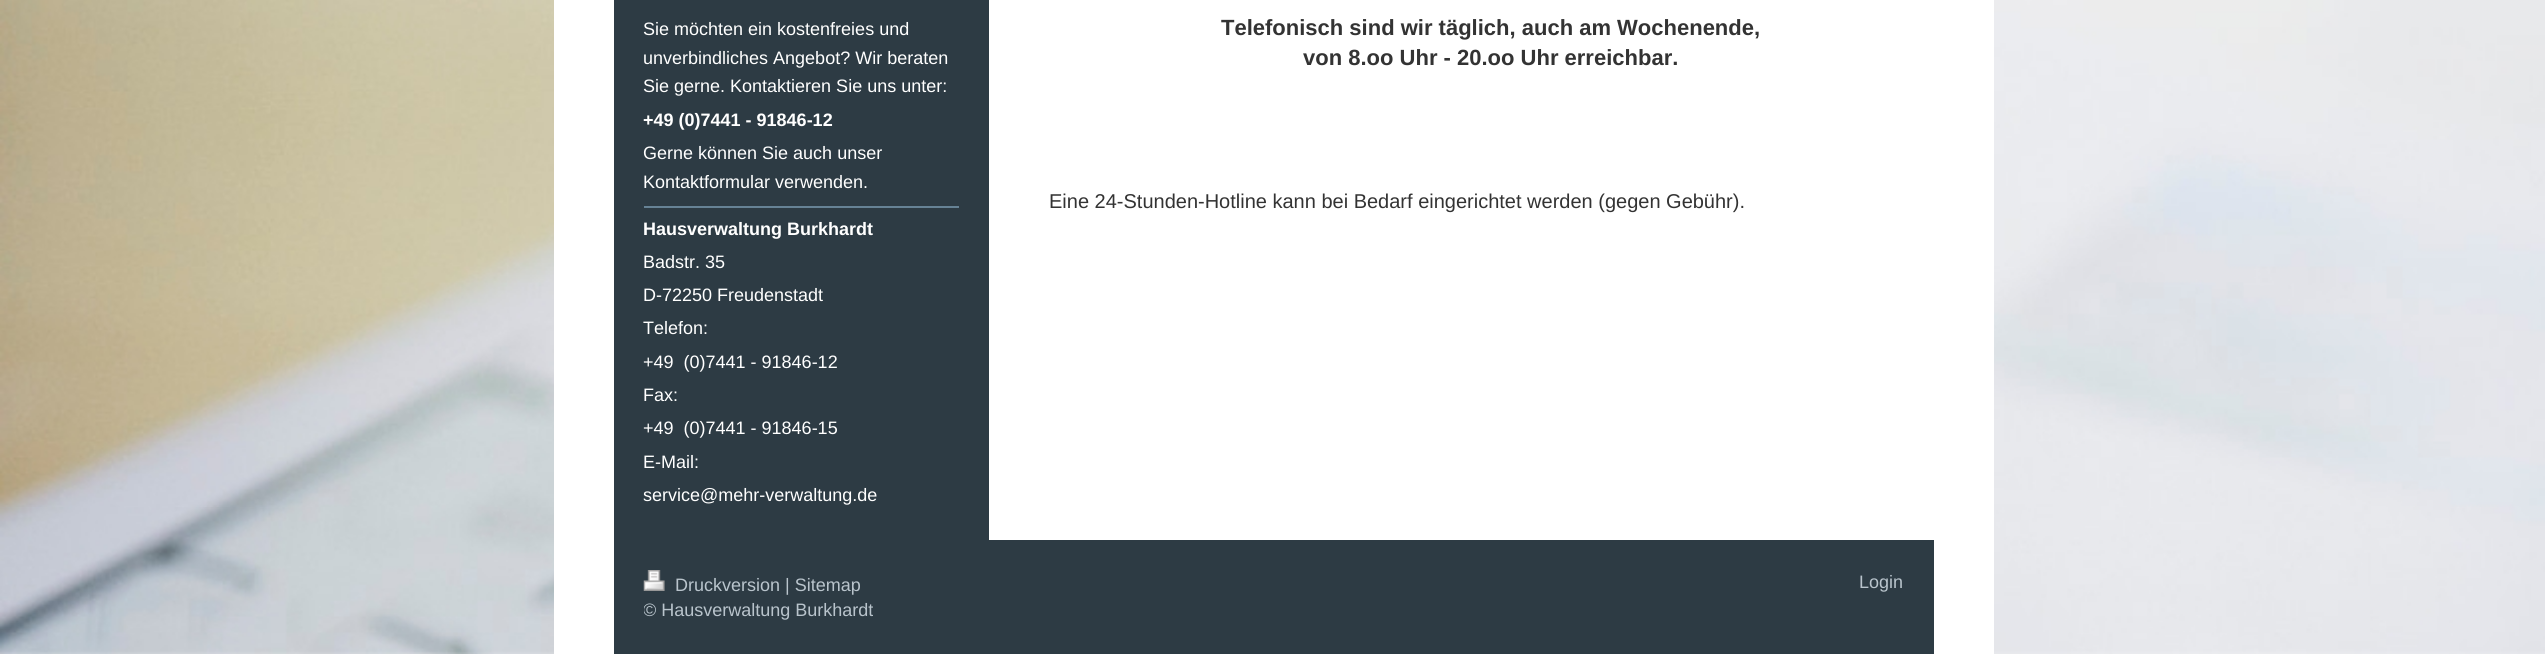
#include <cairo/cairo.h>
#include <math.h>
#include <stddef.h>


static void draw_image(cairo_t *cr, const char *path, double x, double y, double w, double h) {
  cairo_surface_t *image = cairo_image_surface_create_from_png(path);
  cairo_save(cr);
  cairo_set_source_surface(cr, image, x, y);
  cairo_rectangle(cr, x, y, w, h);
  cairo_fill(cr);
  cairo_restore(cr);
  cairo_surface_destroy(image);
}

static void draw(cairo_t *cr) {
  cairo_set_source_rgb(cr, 1, 1, 1);
  cairo_paint(cr);
  draw_image(cr, "images/1.png", 0, 0, 2545, 654);
  cairo_set_source_rgb(cr, 1, 1, 1);
  cairo_rectangle(cr, 554, 0, 1440, 654);
  cairo_fill(cr);
  cairo_set_source_rgb(cr, 45 / 255.0, 59 / 255.0, 68 / 255.0);
  cairo_rectangle(cr, 614, 0, 375, 540);
  cairo_fill(cr);
  cairo_set_source_rgb(cr, 102 / 255.0, 130 / 255.0, 149 / 255.0);
  cairo_rectangle(cr, 644, 206, 315, 2);
  cairo_fill(cr);
  cairo_set_source_rgb(cr, 45 / 255.0, 59 / 255.0, 68 / 255.0);
  cairo_rectangle(cr, 614, 540, 1320, 114);
  cairo_fill(cr);
  draw_image(cr, "images/2.png", 643, 570, 22, 21);
  cairo_select_font_face(cr, "Liberation Sans", CAIRO_FONT_SLANT_NORMAL, CAIRO_FONT_WEIGHT_NORMAL);
  cairo_set_font_size(cr, 18);
  cairo_set_source_rgb(cr, 1, 1, 1);
  cairo_move_to(cr, 643, 35);
  cairo_show_text(cr, "Sie möchten ein kostenfreies und");
  cairo_move_to(cr, 643, 64);
  cairo_show_text(cr, "unverbindliches Angebot? Wir beraten");
  cairo_move_to(cr, 643, 92);
  cairo_show_text(cr, "Sie gerne. Kontaktieren Sie uns unter:");
  cairo_select_font_face(cr, "Liberation Sans", CAIRO_FONT_SLANT_NORMAL, CAIRO_FONT_WEIGHT_BOLD);
  cairo_move_to(cr, 643, 126);
  cairo_show_text(cr, "+49 (0)7441 - 91846-12");
  cairo_select_font_face(cr, "Liberation Sans", CAIRO_FONT_SLANT_NORMAL, CAIRO_FONT_WEIGHT_NORMAL);
  cairo_move_to(cr, 643, 159);
  cairo_show_text(cr, "Gerne können Sie auch unser");
  cairo_move_to(cr, 643, 188);
  cairo_show_text(cr, "Kontaktformular verwenden.");
  cairo_select_font_face(cr, "Liberation Sans", CAIRO_FONT_SLANT_NORMAL, CAIRO_FONT_WEIGHT_BOLD);
  cairo_move_to(cr, 643, 235);
  cairo_show_text(cr, "Hausverwaltung Burkhardt");
  cairo_select_font_face(cr, "Liberation Sans", CAIRO_FONT_SLANT_NORMAL, CAIRO_FONT_WEIGHT_NORMAL);
  cairo_move_to(cr, 643, 268);
  cairo_show_text(cr, "Badstr. 35");
  cairo_move_to(cr, 643, 301);
  cairo_show_text(cr, "D-72250 Freudenstadt");
  cairo_move_to(cr, 643, 334);
  cairo_show_text(cr, "Telefon:");
  cairo_move_to(cr, 643, 368);
  cairo_show_text(cr, "+49  (0)7441 - 91846-12");
  cairo_move_to(cr, 643, 401);
  cairo_show_text(cr, "Fax:");
  cairo_move_to(cr, 643, 434);
  cairo_show_text(cr, "+49  (0)7441 - 91846-15");
  cairo_move_to(cr, 643, 468);
  cairo_show_text(cr, "E-Mail:");
  cairo_move_to(cr, 643, 501);
  cairo_show_text(cr, "service@mehr-verwaltung.de");
  cairo_select_font_face(cr, "Liberation Sans", CAIRO_FONT_SLANT_NORMAL, CAIRO_FONT_WEIGHT_BOLD);
  cairo_set_font_size(cr, 22);
  cairo_set_source_rgb(cr, 51 / 255.0, 51 / 255.0, 51 / 255.0);
  cairo_move_to(cr, 1221, 35);
  cairo_show_text(cr, "Telefonisch sind wir täglich, auch am Wochenende,");
  cairo_move_to(cr, 1303, 65);
  cairo_show_text(cr, "von 8.oo Uhr - 20.oo Uhr erreichbar.");
  cairo_select_font_face(cr, "Liberation Sans", CAIRO_FONT_SLANT_NORMAL, CAIRO_FONT_WEIGHT_NORMAL);
  cairo_set_font_size(cr, 20);
  cairo_move_to(cr, 1049, 208);
  cairo_show_text(cr, "Eine 24-Stunden-Hotline kann bei Bedarf eingerichtet werden (gegen Gebühr).");
  cairo_set_font_size(cr, 18);
  cairo_set_source_rgb(cr, 185 / 255.0, 196 / 255.0, 204 / 255.0);
  cairo_move_to(cr, 675, 591);
  cairo_show_text(cr, "Druckversion | Sitemap");
  cairo_save(cr);
  cairo_rectangle(cr, 644, 570, 1260, 54);
  cairo_clip(cr);
  cairo_move_to(cr, 643, 616);
  cairo_show_text(cr, "© Hausverwaltung Burkhardt");
  cairo_restore(cr);
  cairo_move_to(cr, 1859, 588);
  cairo_show_text(cr, "Login");
}

int main(void) {
  cairo_surface_t *surface = cairo_image_surface_create(CAIRO_FORMAT_RGB24, 2545, 654);
  cairo_t *cr = cairo_create(surface);
  cairo_font_options_t *options = cairo_font_options_create();
  cairo_font_options_set_hint_metrics(options, CAIRO_HINT_METRICS_OFF);
  cairo_font_options_set_hint_style(options, CAIRO_HINT_STYLE_NONE);
  cairo_set_font_options(cr, options);
  cairo_set_miter_limit(cr, 4);
  draw(cr);
  cairo_surface_write_to_png(surface, "out.png");
  cairo_font_options_destroy(options);
  cairo_destroy(cr);
  cairo_surface_destroy(surface);
  return 0;
}
